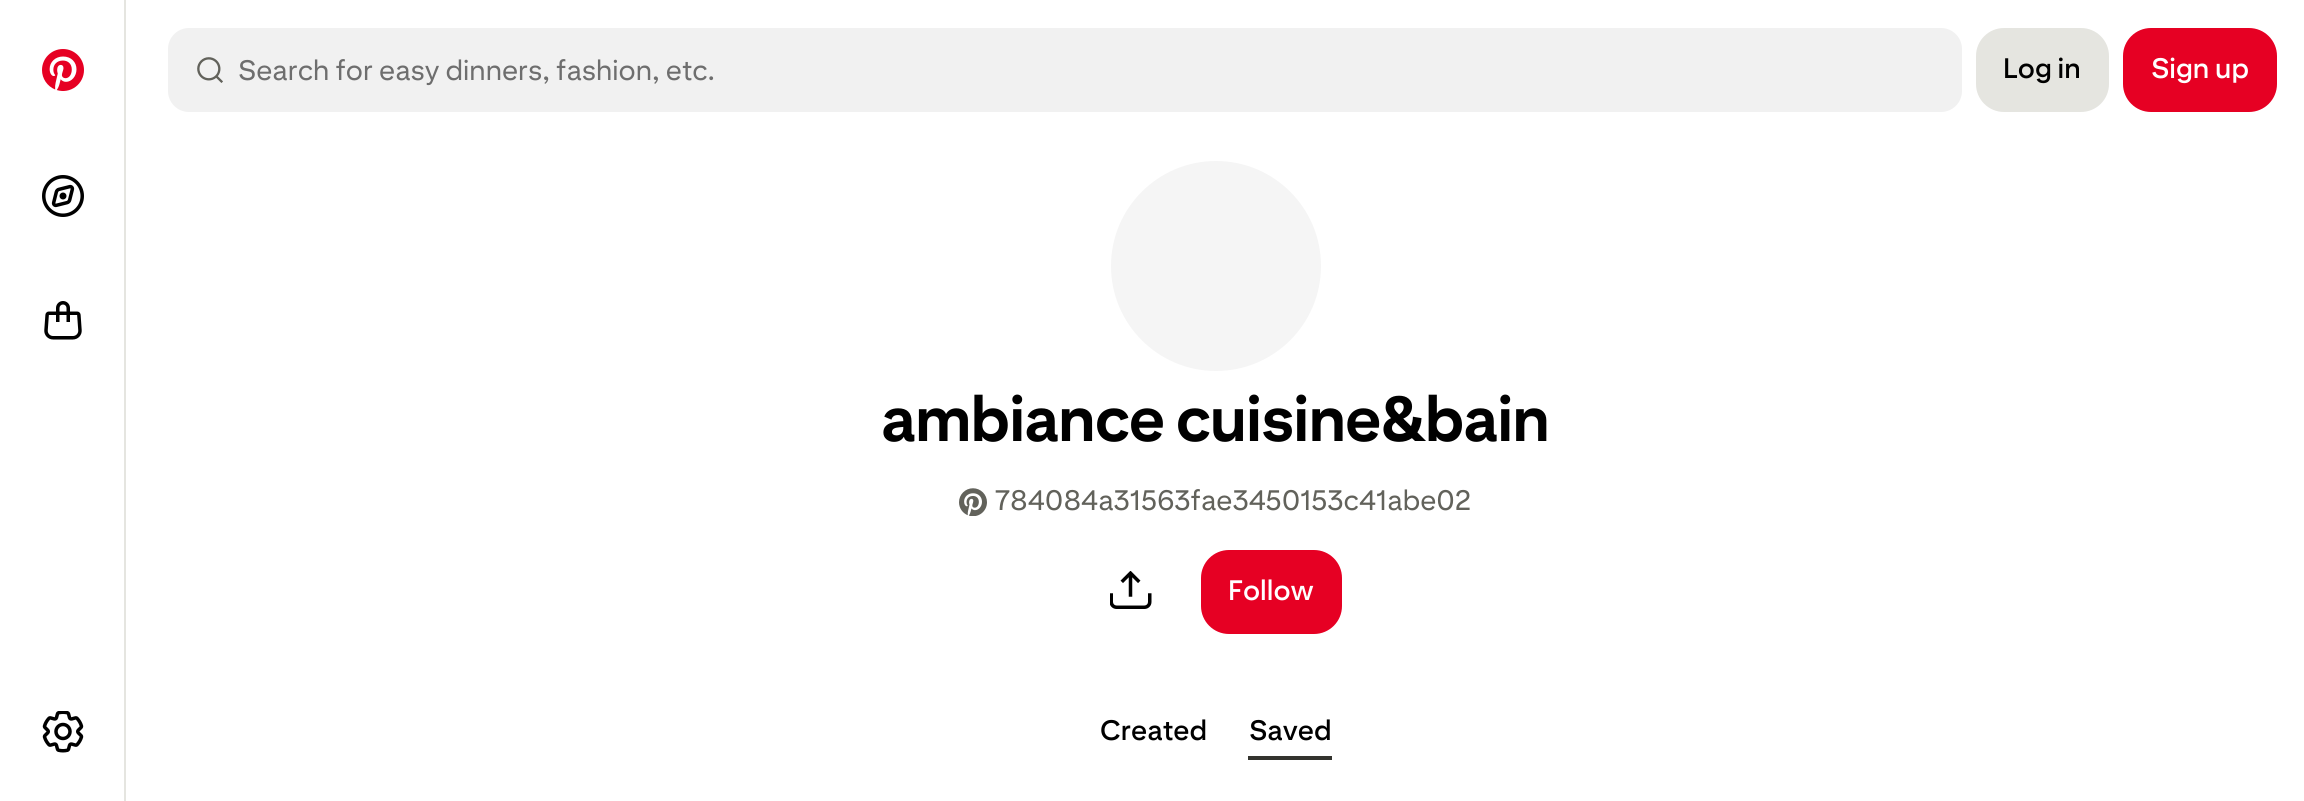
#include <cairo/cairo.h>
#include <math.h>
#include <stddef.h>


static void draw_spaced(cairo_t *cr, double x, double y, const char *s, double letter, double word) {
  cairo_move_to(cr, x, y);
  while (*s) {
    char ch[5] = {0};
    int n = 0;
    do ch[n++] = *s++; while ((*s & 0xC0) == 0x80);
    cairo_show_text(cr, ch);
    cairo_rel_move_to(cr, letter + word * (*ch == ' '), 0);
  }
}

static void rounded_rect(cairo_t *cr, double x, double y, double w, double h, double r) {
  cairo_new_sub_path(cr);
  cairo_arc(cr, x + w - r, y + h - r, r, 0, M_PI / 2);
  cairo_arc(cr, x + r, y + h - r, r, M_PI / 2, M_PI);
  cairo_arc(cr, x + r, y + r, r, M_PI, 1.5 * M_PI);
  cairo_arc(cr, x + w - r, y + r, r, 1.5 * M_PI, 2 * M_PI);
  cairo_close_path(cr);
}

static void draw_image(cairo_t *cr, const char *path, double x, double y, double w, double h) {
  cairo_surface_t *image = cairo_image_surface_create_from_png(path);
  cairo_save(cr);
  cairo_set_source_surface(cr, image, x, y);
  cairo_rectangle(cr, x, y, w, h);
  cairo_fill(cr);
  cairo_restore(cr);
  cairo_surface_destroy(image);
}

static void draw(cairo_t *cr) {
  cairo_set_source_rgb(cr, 1, 1, 1);
  cairo_paint(cr);
  cairo_set_source_rgb(cr, 229 / 255.0, 229 / 255.0, 224 / 255.0);
  cairo_rectangle(cr, 124, 0, 2, 801);
  cairo_fill(cr);
  draw_image(cr, "images/1.png", 42, 49, 42, 42);
  draw_image(cr, "images/2.png", 42, 175, 42, 42);
  draw_image(cr, "images/3.png", 44, 301, 38, 39);
  draw_image(cr, "images/4.png", 42, 711, 42, 42);
  cairo_set_source_rgb(cr, 241 / 255.0, 241 / 255.0, 241 / 255.0);
  rounded_rect(cr, 168, 28, 1794, 84, 21);
  cairo_fill(cr);
  draw_image(cr, "images/5.png", 197, 57, 26, 26);
  cairo_set_source_rgb(cr, 229 / 255.0, 229 / 255.0, 224 / 255.0);
  rounded_rect(cr, 1976, 28, 133, 84, 28);
  cairo_fill(cr);
  cairo_set_source_rgb(cr, 230 / 255.0, 0, 35 / 255.0);
  rounded_rect(cr, 2123, 28, 154, 84, 28);
  cairo_fill(cr);
  cairo_set_source_rgb(cr, 245 / 255.0, 245 / 255.0, 245 / 255.0);
  cairo_arc(cr, 1216, 266, 105, 0, 2 * M_PI);
  cairo_fill(cr);
  draw_image(cr, "images/6.png", 959, 488, 28, 28);
  draw_image(cr, "images/7.png", 1110, 571, 42, 38);
  cairo_set_source_rgb(cr, 230 / 255.0, 0, 35 / 255.0);
  rounded_rect(cr, 1201, 550, 141, 84, 28);
  cairo_fill(cr);
  cairo_set_source_rgb(cr, 51 / 255.0, 51 / 255.0, 46 / 255.0);
  cairo_rectangle(cr, 1248, 756, 84, 4);
  cairo_fill(cr);
  cairo_select_font_face(cr, "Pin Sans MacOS", CAIRO_FONT_SLANT_NORMAL, CAIRO_FONT_WEIGHT_NORMAL);
  cairo_set_font_size(cr, 28);
  cairo_set_source_rgb(cr, 110 / 255.0, 110 / 255.0, 110 / 255.0);
  cairo_move_to(cr, 238, 80);
  cairo_show_text(cr, "Search for easy dinners, fashion, etc.");
  cairo_select_font_face(cr, "Pin Sans MacOS Medium", CAIRO_FONT_SLANT_NORMAL, CAIRO_FONT_WEIGHT_NORMAL);
  cairo_set_source_rgb(cr, 0, 0, 0);
  cairo_move_to(cr, 2003, 78);
  cairo_show_text(cr, "Log in");
  cairo_set_source_rgb(cr, 1, 1, 1);
  cairo_move_to(cr, 2151, 78);
  cairo_show_text(cr, "Sign up");
  cairo_select_font_face(cr, "Pin Sans MacOS", CAIRO_FONT_SLANT_NORMAL, CAIRO_FONT_WEIGHT_BOLD);
  cairo_set_font_size(cr, 63);
  cairo_set_source_rgb(cr, 0, 0, 0);
  draw_spaced(cr, 881, 441, "ambiance cuisine&bain", -0.9, 0);
  cairo_select_font_face(cr, "Pin Sans MacOS", CAIRO_FONT_SLANT_NORMAL, CAIRO_FONT_WEIGHT_NORMAL);
  cairo_set_font_size(cr, 28);
  cairo_set_source_rgb(cr, 98 / 255.0, 98 / 255.0, 91 / 255.0);
  cairo_move_to(cr, 995, 510);
  cairo_show_text(cr, "784084a31563fae3450153c41abe02");
  cairo_select_font_face(cr, "Pin Sans MacOS Medium", CAIRO_FONT_SLANT_NORMAL, CAIRO_FONT_WEIGHT_NORMAL);
  cairo_set_source_rgb(cr, 1, 1, 1);
  cairo_move_to(cr, 1228, 600);
  cairo_show_text(cr, "Follow");
  cairo_set_source_rgb(cr, 0, 0, 0);
  cairo_move_to(cr, 1100, 740);
  cairo_show_text(cr, "Created");
  cairo_move_to(cr, 1249, 740);
  cairo_show_text(cr, "Saved");
}

int main(void) {
  cairo_surface_t *surface = cairo_image_surface_create(CAIRO_FORMAT_RGB24, 2304, 801);
  cairo_t *cr = cairo_create(surface);
  cairo_font_options_t *options = cairo_font_options_create();
  cairo_font_options_set_hint_metrics(options, CAIRO_HINT_METRICS_OFF);
  cairo_font_options_set_hint_style(options, CAIRO_HINT_STYLE_NONE);
  cairo_set_font_options(cr, options);
  cairo_set_miter_limit(cr, 4);
  draw(cr);
  cairo_surface_write_to_png(surface, "out.png");
  cairo_font_options_destroy(options);
  cairo_destroy(cr);
  cairo_surface_destroy(surface);
  return 0;
}
